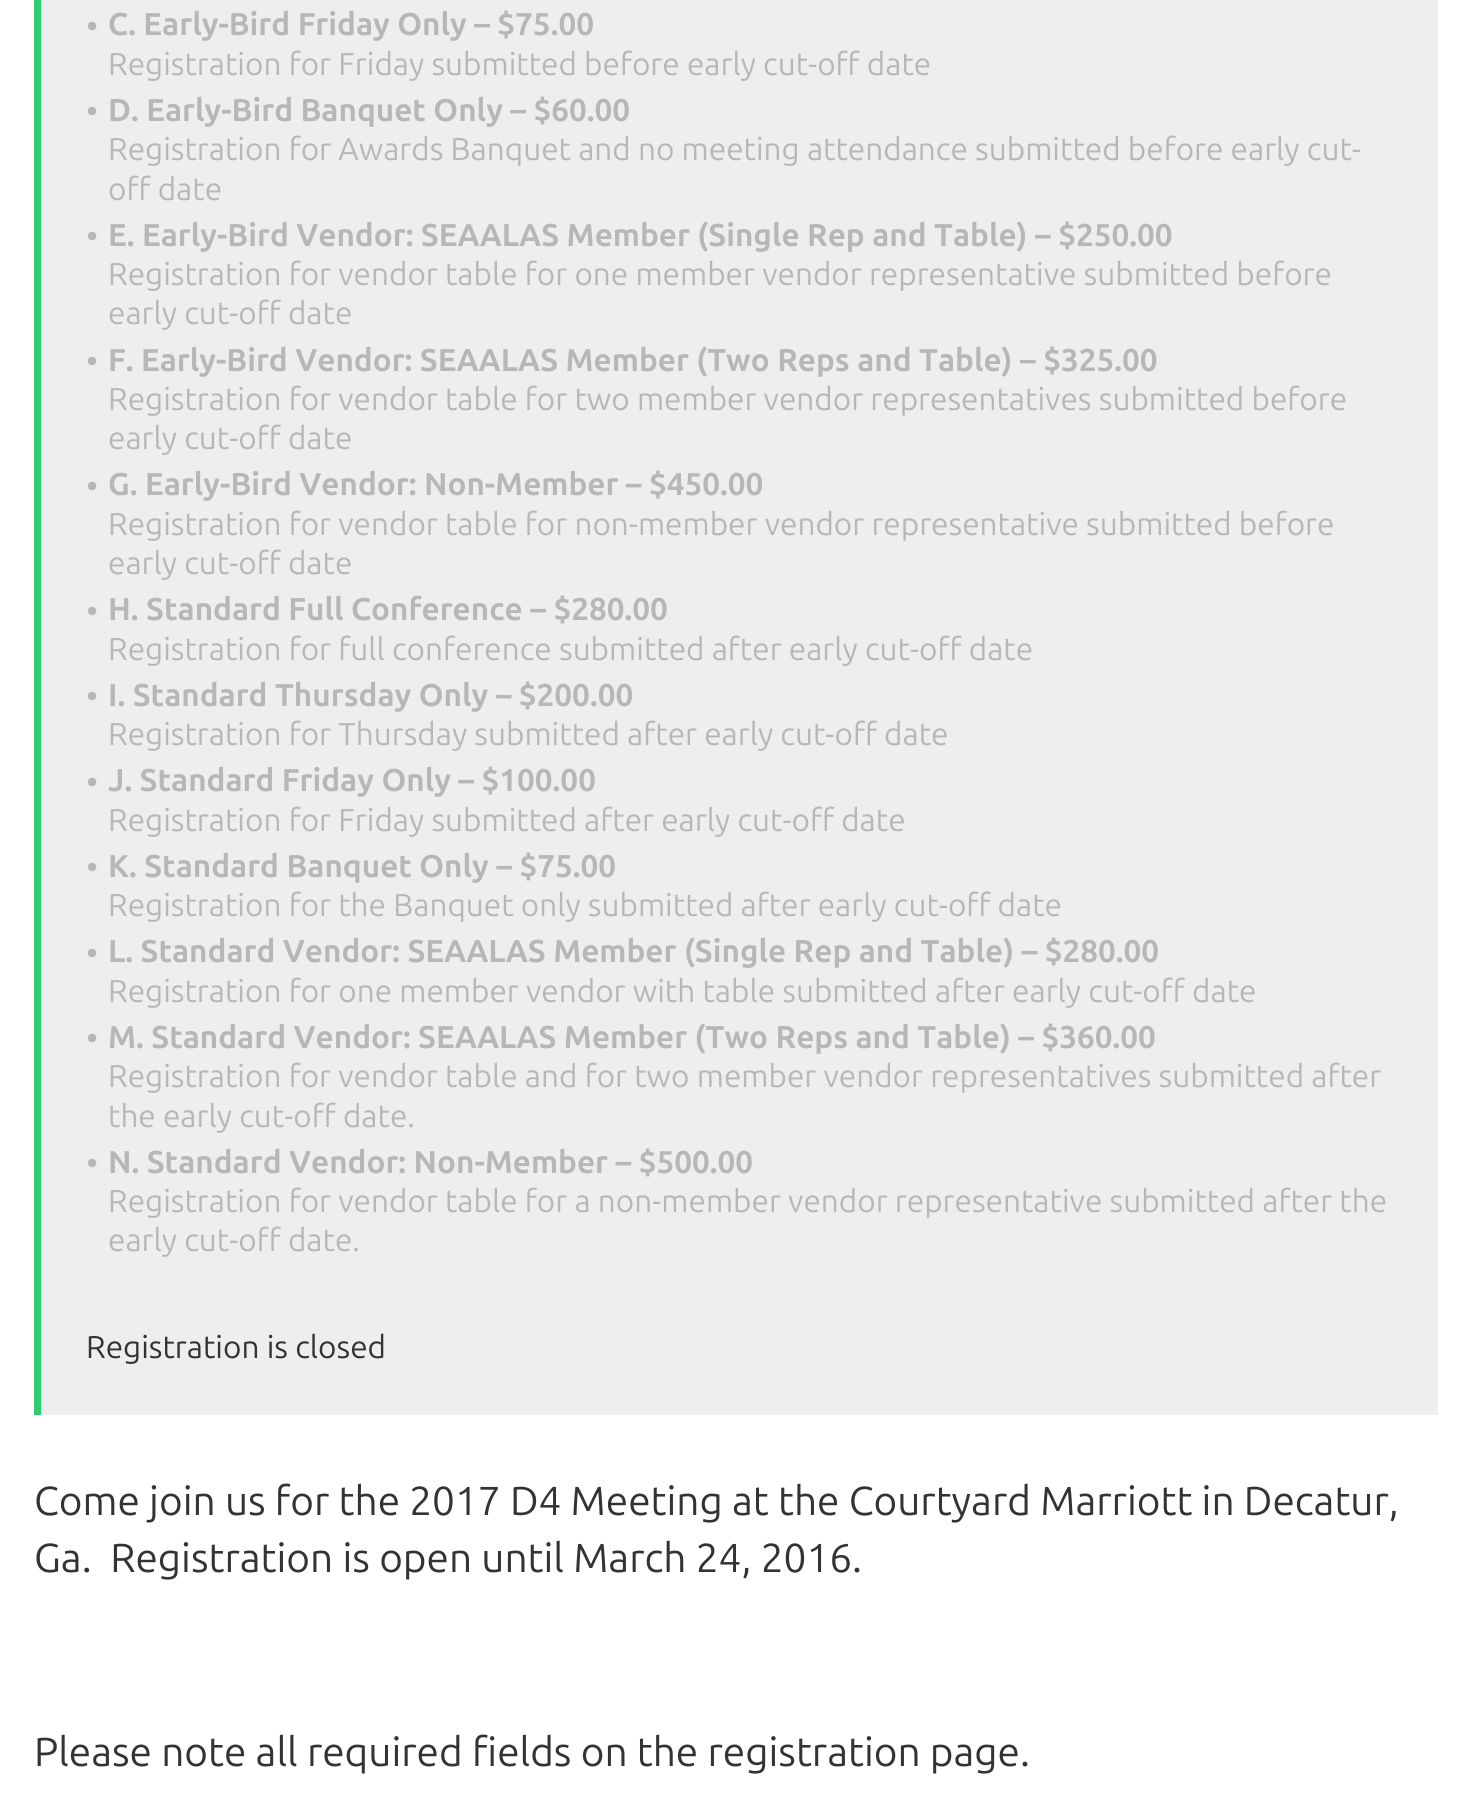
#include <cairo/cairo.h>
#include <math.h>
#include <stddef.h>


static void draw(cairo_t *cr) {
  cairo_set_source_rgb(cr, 1, 1, 1);
  cairo_paint(cr);
  cairo_set_source_rgb(cr, 238 / 255.0, 238 / 255.0, 238 / 255.0);
  cairo_rectangle(cr, 41, 0, 1397, 1415);
  cairo_fill(cr);
  cairo_set_source_rgb(cr, 46 / 255.0, 204 / 255.0, 113 / 255.0);
  cairo_rectangle(cr, 34, 0, 7, 1415);
  cairo_fill(cr);
  cairo_select_font_face(cr, "Ubuntu", CAIRO_FONT_SLANT_NORMAL, CAIRO_FONT_WEIGHT_NORMAL);
  cairo_set_font_size(cr, 34);
  cairo_set_source_rgb(cr, 183 / 255.0, 183 / 255.0, 183 / 255.0);
  cairo_move_to(cr, 86, 38);
  cairo_show_text(cr, "•");
  cairo_select_font_face(cr, "Ubuntu", CAIRO_FONT_SLANT_NORMAL, CAIRO_FONT_WEIGHT_BOLD);
  cairo_set_font_size(cr, 31.5);
  cairo_move_to(cr, 108, 35);
  cairo_show_text(cr, "C. Early-Bird Friday Only – $75.00");
  cairo_select_font_face(cr, "Ubuntu", CAIRO_FONT_SLANT_NORMAL, CAIRO_FONT_WEIGHT_NORMAL);
  cairo_move_to(cr, 108, 75);
  cairo_show_text(cr, "Registration for Friday submitted before early cut-off date");
  cairo_set_font_size(cr, 34);
  cairo_move_to(cr, 86, 123);
  cairo_show_text(cr, "•");
  cairo_select_font_face(cr, "Ubuntu", CAIRO_FONT_SLANT_NORMAL, CAIRO_FONT_WEIGHT_BOLD);
  cairo_set_font_size(cr, 31.5);
  cairo_move_to(cr, 108, 121);
  cairo_show_text(cr, "D. Early-Bird Banquet Only – $60.00");
  cairo_select_font_face(cr, "Ubuntu", CAIRO_FONT_SLANT_NORMAL, CAIRO_FONT_WEIGHT_NORMAL);
  cairo_move_to(cr, 108, 160);
  cairo_show_text(cr, "Registration for Awards Banquet and no meeting attendance submitted before early cut-");
  cairo_move_to(cr, 108, 200);
  cairo_show_text(cr, "off date");
  cairo_set_font_size(cr, 34);
  cairo_move_to(cr, 86, 248);
  cairo_show_text(cr, "•");
  cairo_select_font_face(cr, "Ubuntu", CAIRO_FONT_SLANT_NORMAL, CAIRO_FONT_WEIGHT_BOLD);
  cairo_set_font_size(cr, 31.5);
  cairo_move_to(cr, 108, 246);
  cairo_show_text(cr, "E. Early-Bird Vendor: SEAALAS Member (Single Rep and Table) – $250.00");
  cairo_select_font_face(cr, "Ubuntu", CAIRO_FONT_SLANT_NORMAL, CAIRO_FONT_WEIGHT_NORMAL);
  cairo_move_to(cr, 108, 285);
  cairo_show_text(cr, "Registration for vendor table for one member vendor representative submitted before");
  cairo_move_to(cr, 108, 324);
  cairo_show_text(cr, "early cut-off date");
  cairo_set_font_size(cr, 34);
  cairo_move_to(cr, 86, 373);
  cairo_show_text(cr, "•");
  cairo_select_font_face(cr, "Ubuntu", CAIRO_FONT_SLANT_NORMAL, CAIRO_FONT_WEIGHT_BOLD);
  cairo_set_font_size(cr, 31.5);
  cairo_move_to(cr, 108, 371);
  cairo_show_text(cr, "F. Early-Bird Vendor: SEAALAS Member (Two Reps and Table) – $325.00");
  cairo_select_font_face(cr, "Ubuntu", CAIRO_FONT_SLANT_NORMAL, CAIRO_FONT_WEIGHT_NORMAL);
  cairo_move_to(cr, 108, 410);
  cairo_show_text(cr, "Registration for vendor table for two member vendor representatives submitted before");
  cairo_move_to(cr, 108, 449);
  cairo_show_text(cr, "early cut-off date");
  cairo_set_font_size(cr, 34);
  cairo_move_to(cr, 86, 498);
  cairo_show_text(cr, "•");
  cairo_select_font_face(cr, "Ubuntu", CAIRO_FONT_SLANT_NORMAL, CAIRO_FONT_WEIGHT_BOLD);
  cairo_set_font_size(cr, 31.5);
  cairo_move_to(cr, 108, 495);
  cairo_show_text(cr, "G. Early-Bird Vendor: Non-Member – $450.00");
  cairo_select_font_face(cr, "Ubuntu", CAIRO_FONT_SLANT_NORMAL, CAIRO_FONT_WEIGHT_NORMAL);
  cairo_move_to(cr, 108, 535);
  cairo_show_text(cr, "Registration for vendor table for non-member vendor representative submitted before");
  cairo_move_to(cr, 108, 574);
  cairo_show_text(cr, "early cut-off date");
  cairo_set_font_size(cr, 34);
  cairo_move_to(cr, 86, 623);
  cairo_show_text(cr, "•");
  cairo_select_font_face(cr, "Ubuntu", CAIRO_FONT_SLANT_NORMAL, CAIRO_FONT_WEIGHT_BOLD);
  cairo_set_font_size(cr, 31.5);
  cairo_move_to(cr, 108, 620);
  cairo_show_text(cr, "H. Standard Full Conference – $280.00");
  cairo_select_font_face(cr, "Ubuntu", CAIRO_FONT_SLANT_NORMAL, CAIRO_FONT_WEIGHT_NORMAL);
  cairo_move_to(cr, 108, 660);
  cairo_show_text(cr, "Registration for full conference submitted after early cut-off date");
  cairo_set_font_size(cr, 34);
  cairo_move_to(cr, 86, 708);
  cairo_show_text(cr, "•");
  cairo_select_font_face(cr, "Ubuntu", CAIRO_FONT_SLANT_NORMAL, CAIRO_FONT_WEIGHT_BOLD);
  cairo_set_font_size(cr, 31.5);
  cairo_move_to(cr, 108, 706);
  cairo_show_text(cr, "I. Standard Thursday Only – $200.00");
  cairo_select_font_face(cr, "Ubuntu", CAIRO_FONT_SLANT_NORMAL, CAIRO_FONT_WEIGHT_NORMAL);
  cairo_move_to(cr, 108, 745);
  cairo_show_text(cr, "Registration for Thursday submitted after early cut-off date");
  cairo_set_font_size(cr, 34);
  cairo_move_to(cr, 86, 794);
  cairo_show_text(cr, "•");
  cairo_select_font_face(cr, "Ubuntu", CAIRO_FONT_SLANT_NORMAL, CAIRO_FONT_WEIGHT_BOLD);
  cairo_set_font_size(cr, 31.5);
  cairo_move_to(cr, 108, 791);
  cairo_show_text(cr, "J. Standard Friday Only – $100.00");
  cairo_select_font_face(cr, "Ubuntu", CAIRO_FONT_SLANT_NORMAL, CAIRO_FONT_WEIGHT_NORMAL);
  cairo_move_to(cr, 108, 831);
  cairo_show_text(cr, "Registration for Friday submitted after early cut-off date");
  cairo_set_font_size(cr, 34);
  cairo_move_to(cr, 86, 879);
  cairo_show_text(cr, "•");
  cairo_select_font_face(cr, "Ubuntu", CAIRO_FONT_SLANT_NORMAL, CAIRO_FONT_WEIGHT_BOLD);
  cairo_set_font_size(cr, 31.5);
  cairo_move_to(cr, 108, 877);
  cairo_show_text(cr, "K. Standard Banquet Only – $75.00");
  cairo_select_font_face(cr, "Ubuntu", CAIRO_FONT_SLANT_NORMAL, CAIRO_FONT_WEIGHT_NORMAL);
  cairo_move_to(cr, 108, 916);
  cairo_show_text(cr, "Registration for the Banquet only submitted after early cut-off date");
  cairo_set_font_size(cr, 34);
  cairo_move_to(cr, 86, 965);
  cairo_show_text(cr, "•");
  cairo_select_font_face(cr, "Ubuntu", CAIRO_FONT_SLANT_NORMAL, CAIRO_FONT_WEIGHT_BOLD);
  cairo_set_font_size(cr, 31.5);
  cairo_move_to(cr, 108, 962);
  cairo_show_text(cr, "L. Standard Vendor: SEAALAS Member (Single Rep and Table) – $280.00");
  cairo_select_font_face(cr, "Ubuntu", CAIRO_FONT_SLANT_NORMAL, CAIRO_FONT_WEIGHT_NORMAL);
  cairo_move_to(cr, 108, 1002);
  cairo_show_text(cr, "Registration for one member vendor with table submitted after early cut-off date");
  cairo_set_font_size(cr, 34);
  cairo_move_to(cr, 86, 1050);
  cairo_show_text(cr, "•");
  cairo_select_font_face(cr, "Ubuntu", CAIRO_FONT_SLANT_NORMAL, CAIRO_FONT_WEIGHT_BOLD);
  cairo_set_font_size(cr, 31.5);
  cairo_move_to(cr, 108, 1048);
  cairo_show_text(cr, "M. Standard Vendor: SEAALAS Member (Two Reps and Table) – $360.00");
  cairo_select_font_face(cr, "Ubuntu", CAIRO_FONT_SLANT_NORMAL, CAIRO_FONT_WEIGHT_NORMAL);
  cairo_move_to(cr, 108, 1087);
  cairo_show_text(cr, "Registration for vendor table and for two member vendor representatives submitted after");
  cairo_move_to(cr, 108, 1127);
  cairo_show_text(cr, "the early cut-off date.");
  cairo_set_font_size(cr, 34);
  cairo_move_to(cr, 86, 1175);
  cairo_show_text(cr, "•");
  cairo_select_font_face(cr, "Ubuntu", CAIRO_FONT_SLANT_NORMAL, CAIRO_FONT_WEIGHT_BOLD);
  cairo_set_font_size(cr, 31.5);
  cairo_move_to(cr, 108, 1173);
  cairo_show_text(cr, "N. Standard Vendor: Non-Member – $500.00");
  cairo_select_font_face(cr, "Ubuntu", CAIRO_FONT_SLANT_NORMAL, CAIRO_FONT_WEIGHT_NORMAL);
  cairo_move_to(cr, 108, 1212);
  cairo_show_text(cr, "Registration for vendor table for a non-member vendor representative submitted after the");
  cairo_move_to(cr, 108, 1251);
  cairo_show_text(cr, "early cut-off date.");
  cairo_set_source_rgb(cr, 51 / 255.0, 51 / 255.0, 51 / 255.0);
  cairo_move_to(cr, 86, 1358);
  cairo_show_text(cr, "Registration is closed");
  cairo_set_font_size(cr, 40.5);
  cairo_move_to(cr, 34, 1515);
  cairo_show_text(cr, "Come join us for the 2017 D4 Meeting at the Courtyard Marriott in Decatur,");
  cairo_move_to(cr, 34, 1572);
  cairo_show_text(cr, "Ga.  Registration is open until March 24, 2016.");
  cairo_move_to(cr, 34, 1766);
  cairo_show_text(cr, "Please note all required fields on the registration page.");
}

int main(void) {
  cairo_surface_t *surface = cairo_image_surface_create(CAIRO_FORMAT_RGB24, 1470, 1809);
  cairo_t *cr = cairo_create(surface);
  cairo_font_options_t *options = cairo_font_options_create();
  cairo_font_options_set_hint_metrics(options, CAIRO_HINT_METRICS_OFF);
  cairo_font_options_set_hint_style(options, CAIRO_HINT_STYLE_NONE);
  cairo_set_font_options(cr, options);
  cairo_set_miter_limit(cr, 4);
  draw(cr);
  cairo_surface_write_to_png(surface, "out.png");
  cairo_font_options_destroy(options);
  cairo_destroy(cr);
  cairo_surface_destroy(surface);
  return 0;
}
